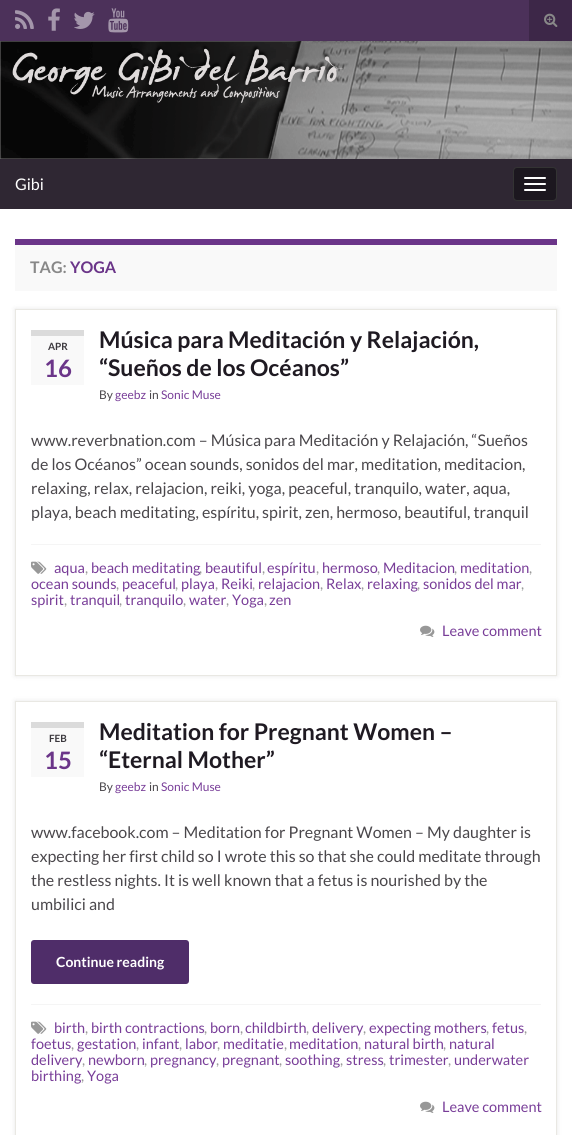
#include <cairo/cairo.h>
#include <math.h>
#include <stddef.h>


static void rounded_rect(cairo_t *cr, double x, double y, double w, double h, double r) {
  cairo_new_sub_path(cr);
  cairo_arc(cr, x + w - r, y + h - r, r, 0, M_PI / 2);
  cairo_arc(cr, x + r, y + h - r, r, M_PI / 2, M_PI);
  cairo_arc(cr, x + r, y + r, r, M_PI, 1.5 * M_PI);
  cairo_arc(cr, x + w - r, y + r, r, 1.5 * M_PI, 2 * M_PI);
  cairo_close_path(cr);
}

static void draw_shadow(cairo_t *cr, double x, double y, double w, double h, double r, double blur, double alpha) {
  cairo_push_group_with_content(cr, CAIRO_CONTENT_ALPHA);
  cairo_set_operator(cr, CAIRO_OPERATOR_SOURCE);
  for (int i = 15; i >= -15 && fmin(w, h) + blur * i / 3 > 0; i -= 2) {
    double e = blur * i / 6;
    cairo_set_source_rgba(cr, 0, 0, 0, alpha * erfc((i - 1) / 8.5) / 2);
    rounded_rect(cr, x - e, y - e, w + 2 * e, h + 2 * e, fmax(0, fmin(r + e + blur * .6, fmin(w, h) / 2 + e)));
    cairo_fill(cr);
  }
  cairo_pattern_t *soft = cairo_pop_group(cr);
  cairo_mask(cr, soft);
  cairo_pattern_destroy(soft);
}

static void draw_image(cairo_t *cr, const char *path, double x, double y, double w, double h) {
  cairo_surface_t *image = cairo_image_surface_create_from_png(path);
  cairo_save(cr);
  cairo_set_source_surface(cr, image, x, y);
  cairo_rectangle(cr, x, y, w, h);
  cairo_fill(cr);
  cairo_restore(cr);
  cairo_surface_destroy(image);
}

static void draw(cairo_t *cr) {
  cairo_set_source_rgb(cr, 76 / 255.0, 49 / 255.0, 90 / 255.0);
  cairo_paint(cr);
  draw_image(cr, "images/1.png", 15, 10, 19, 19);
  draw_image(cr, "images/2.png", 48, 8, 12, 23);
  draw_image(cr, "images/3.png", 74, 11, 21, 18);
  draw_image(cr, "images/4.png", 108, 8, 21, 25);
  cairo_set_source_rgb(cr, 61 / 255.0, 39 / 255.0, 72 / 255.0);
  cairo_rectangle(cr, 529, 0, 43, 41);
  cairo_fill(cr);
  draw_image(cr, "images/5.png", 544, 13, 14, 14);
  draw_image(cr, "images/6.png", 0, 41, 572, 118);
  cairo_set_source_rgb(cr, 47 / 255.0, 39 / 255.0, 51 / 255.0);
  cairo_rectangle(cr, 0, 159, 572, 50);
  cairo_fill(cr);
  cairo_set_source_rgb(cr, 28 / 255.0, 23 / 255.0, 31 / 255.0);
  rounded_rect(cr, 513.5, 167.5, 43, 33, 3.5);
  cairo_fill_preserve(cr);
  cairo_set_source_rgb(cr, 51 / 255.0, 51 / 255.0, 51 / 255.0);
  cairo_set_line_width(cr, 1);
  cairo_stroke(cr);
  cairo_set_source_rgb(cr, 1, 1, 1);
  rounded_rect(cr, 524, 177, 22, 2, 1);
  cairo_fill(cr);
  rounded_rect(cr, 524, 183, 22, 2, 1);
  cairo_fill(cr);
  rounded_rect(cr, 524, 189, 22, 2, 1);
  cairo_fill(cr);
  cairo_rectangle(cr, 0, 209, 572, 926);
  cairo_fill(cr);
  cairo_set_source_rgb(cr, 249 / 255.0, 249 / 255.0, 249 / 255.0);
  cairo_rectangle(cr, 15, 245, 542, 46);
  cairo_fill(cr);
  cairo_set_source_rgb(cr, 107 / 255.0, 53 / 255.0, 137 / 255.0);
  cairo_rectangle(cr, 15, 239, 542, 6);
  cairo_fill(cr);
  cairo_save(cr);
  cairo_set_fill_rule(cr, CAIRO_FILL_RULE_EVEN_ODD);
  cairo_new_path(cr);
  cairo_move_to(cr, 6, 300);
  cairo_line_to(cr, 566, 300);
  cairo_line_to(cr, 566, 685);
  cairo_line_to(cr, 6, 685);
  cairo_close_path(cr);
  cairo_move_to(cr, 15, 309);
  cairo_line_to(cr, 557, 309);
  cairo_line_to(cr, 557, 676);
  cairo_line_to(cr, 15, 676);
  cairo_close_path(cr);
  cairo_clip(cr);
  cairo_set_source_rgb(cr, 0, 0, 0);
  draw_shadow(cr, 15, 309, 542, 367, 0, 2.5, 0.1);
  cairo_restore(cr);
  cairo_rectangle(cr, 15.5, 309.5, 541, 366);
  cairo_set_source_rgb(cr, 233 / 255.0, 232 / 255.0, 227 / 255.0);
  cairo_stroke(cr);
  cairo_set_source_rgb(cr, 249 / 255.0, 249 / 255.0, 249 / 255.0);
  cairo_rectangle(cr, 31, 336, 53, 49);
  cairo_fill(cr);
  cairo_set_source_rgb(cr, 219 / 255.0, 219 / 255.0, 219 / 255.0);
  cairo_rectangle(cr, 31, 330, 53, 6);
  cairo_fill(cr);
  cairo_set_source_rgb(cr, 245 / 255.0, 245 / 255.0, 245 / 255.0);
  cairo_rectangle(cr, 31, 544, 510, 1);
  cairo_fill(cr);
  draw_image(cr, "images/7.png", 31, 561, 16, 13);
  draw_image(cr, "images/8.png", 420, 625, 15, 12);
  cairo_save(cr);
  cairo_set_fill_rule(cr, CAIRO_FILL_RULE_EVEN_ODD);
  cairo_new_path(cr);
  cairo_move_to(cr, 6, 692);
  cairo_line_to(cr, 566, 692);
  cairo_line_to(cr, 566, 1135);
  cairo_line_to(cr, 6, 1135);
  cairo_close_path(cr);
  cairo_move_to(cr, 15, 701);
  cairo_line_to(cr, 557, 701);
  cairo_line_to(cr, 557, 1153);
  cairo_line_to(cr, 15, 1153);
  cairo_close_path(cr);
  cairo_clip(cr);
  cairo_set_source_rgb(cr, 0, 0, 0);
  draw_shadow(cr, 15, 701, 542, 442, 0, 2.5, 0.1);
  cairo_restore(cr);
  cairo_rectangle(cr, 15.5, 701.5, 541, 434);
  cairo_set_source_rgb(cr, 233 / 255.0, 232 / 255.0, 227 / 255.0);
  cairo_stroke(cr);
  cairo_set_source_rgb(cr, 249 / 255.0, 249 / 255.0, 249 / 255.0);
  cairo_rectangle(cr, 31, 728, 53, 49);
  cairo_fill(cr);
  cairo_set_source_rgb(cr, 219 / 255.0, 219 / 255.0, 219 / 255.0);
  cairo_rectangle(cr, 31, 722, 53, 6);
  cairo_fill(cr);
  cairo_set_source_rgb(cr, 79 / 255.0, 45 / 255.0, 105 / 255.0);
  rounded_rect(cr, 31, 940, 158, 44, 3);
  cairo_fill(cr);
  cairo_set_source_rgb(cr, 245 / 255.0, 245 / 255.0, 245 / 255.0);
  cairo_rectangle(cr, 31, 1004, 510, 1);
  cairo_fill(cr);
  draw_image(cr, "images/7.png", 31, 1021, 16, 13);
  draw_image(cr, "images/8.png", 420, 1101, 15, 12);
  cairo_select_font_face(cr, "Lato", CAIRO_FONT_SLANT_NORMAL, CAIRO_FONT_WEIGHT_NORMAL);
  cairo_set_font_size(cr, 16);
  cairo_set_source_rgb(cr, 1, 1, 1);
  cairo_move_to(cr, 15, 190);
  cairo_show_text(cr, "Gibi");
  cairo_select_font_face(cr, "Lato", CAIRO_FONT_SLANT_NORMAL, CAIRO_FONT_WEIGHT_BOLD);
  cairo_set_source_rgb(cr, 136 / 255.0, 136 / 255.0, 136 / 255.0);
  cairo_move_to(cr, 30, 273);
  cairo_show_text(cr, "TAG:");
  cairo_set_source_rgb(cr, 107 / 255.0, 53 / 255.0, 137 / 255.0);
  cairo_move_to(cr, 70, 273);
  cairo_show_text(cr, "YOGA");
  cairo_set_font_size(cr, 10);
  cairo_set_source_rgb(cr, 59 / 255.0, 56 / 255.0, 61 / 255.0);
  cairo_move_to(cr, 48, 350);
  cairo_show_text(cr, "APR");
  cairo_set_font_size(cr, 24);
  cairo_set_source_rgb(cr, 107 / 255.0, 53 / 255.0, 137 / 255.0);
  cairo_move_to(cr, 44, 377);
  cairo_show_text(cr, "16");
  cairo_set_font_size(cr, 23);
  cairo_set_source_rgb(cr, 31 / 255.0, 26 / 255.0, 34 / 255.0);
  cairo_move_to(cr, 99, 348);
  cairo_show_text(cr, "Música para Meditación y Relajación,");
  cairo_move_to(cr, 99, 376);
  cairo_show_text(cr, "“Sueños de los Océanos”");
  cairo_select_font_face(cr, "Lato", CAIRO_FONT_SLANT_NORMAL, CAIRO_FONT_WEIGHT_NORMAL);
  cairo_set_font_size(cr, 12);
  cairo_set_source_rgb(cr, 74 / 255.0, 71 / 255.0, 75 / 255.0);
  cairo_move_to(cr, 99, 399);
  cairo_show_text(cr, "By");
  cairo_set_source_rgb(cr, 120 / 255.0, 61 / 255.0, 152 / 255.0);
  cairo_move_to(cr, 115, 399);
  cairo_show_text(cr, "geebz");
  cairo_set_source_rgb(cr, 74 / 255.0, 71 / 255.0, 75 / 255.0);
  cairo_move_to(cr, 149, 399);
  cairo_show_text(cr, "in");
  cairo_set_source_rgb(cr, 120 / 255.0, 61 / 255.0, 152 / 255.0);
  cairo_move_to(cr, 161, 399);
  cairo_show_text(cr, "Sonic Muse");
  cairo_set_font_size(cr, 16);
  cairo_set_source_rgb(cr, 74 / 255.0, 71 / 255.0, 75 / 255.0);
  cairo_move_to(cr, 31, 446);
  cairo_show_text(cr, "www.reverbnation.com – Música para Meditación y Relajación, “Sueños");
  cairo_move_to(cr, 31, 470);
  cairo_show_text(cr, "de los Océanos” ocean sounds, sonidos del mar, meditation, meditacion,");
  cairo_move_to(cr, 31, 494);
  cairo_show_text(cr, "relaxing, relax, relajacion, reiki, yoga, peaceful, tranquilo, water, aqua,");
  cairo_move_to(cr, 31, 518);
  cairo_show_text(cr, "playa, beach meditating, espíritu, spirit, zen, hermoso, beautiful, tranquil");
  cairo_set_font_size(cr, 14.5);
  cairo_set_source_rgb(cr, 120 / 255.0, 61 / 255.0, 152 / 255.0);
  cairo_move_to(cr, 54, 573);
  cairo_show_text(cr, "aqua");
  cairo_set_source_rgb(cr, 152 / 255.0, 152 / 255.0, 152 / 255.0);
  cairo_move_to(cr, 85, 573);
  cairo_show_text(cr, ",");
  cairo_set_source_rgb(cr, 120 / 255.0, 61 / 255.0, 152 / 255.0);
  cairo_move_to(cr, 91, 573);
  cairo_show_text(cr, "beach meditating");
  cairo_set_source_rgb(cr, 152 / 255.0, 152 / 255.0, 152 / 255.0);
  cairo_move_to(cr, 199, 573);
  cairo_show_text(cr, ",");
  cairo_set_source_rgb(cr, 120 / 255.0, 61 / 255.0, 152 / 255.0);
  cairo_move_to(cr, 205, 573);
  cairo_show_text(cr, "beautiful");
  cairo_set_source_rgb(cr, 152 / 255.0, 152 / 255.0, 152 / 255.0);
  cairo_move_to(cr, 262, 573);
  cairo_show_text(cr, ",");
  cairo_set_source_rgb(cr, 120 / 255.0, 61 / 255.0, 152 / 255.0);
  cairo_move_to(cr, 267, 573);
  cairo_show_text(cr, "espíritu");
  cairo_set_source_rgb(cr, 152 / 255.0, 152 / 255.0, 152 / 255.0);
  cairo_move_to(cr, 316, 573);
  cairo_show_text(cr, ",");
  cairo_set_source_rgb(cr, 120 / 255.0, 61 / 255.0, 152 / 255.0);
  cairo_move_to(cr, 322, 573);
  cairo_show_text(cr, "hermoso");
  cairo_set_source_rgb(cr, 152 / 255.0, 152 / 255.0, 152 / 255.0);
  cairo_move_to(cr, 377, 573);
  cairo_show_text(cr, ",");
  cairo_set_source_rgb(cr, 120 / 255.0, 61 / 255.0, 152 / 255.0);
  cairo_move_to(cr, 383, 573);
  cairo_show_text(cr, "Meditacion");
  cairo_set_source_rgb(cr, 152 / 255.0, 152 / 255.0, 152 / 255.0);
  cairo_move_to(cr, 454, 573);
  cairo_show_text(cr, ",");
  cairo_set_source_rgb(cr, 120 / 255.0, 61 / 255.0, 152 / 255.0);
  cairo_move_to(cr, 460, 573);
  cairo_show_text(cr, "meditation");
  cairo_set_source_rgb(cr, 152 / 255.0, 152 / 255.0, 152 / 255.0);
  cairo_move_to(cr, 529, 573);
  cairo_show_text(cr, ",");
  cairo_set_source_rgb(cr, 120 / 255.0, 61 / 255.0, 152 / 255.0);
  cairo_move_to(cr, 31, 589);
  cairo_show_text(cr, "ocean sounds");
  cairo_set_source_rgb(cr, 152 / 255.0, 152 / 255.0, 152 / 255.0);
  cairo_move_to(cr, 116, 589);
  cairo_show_text(cr, ",");
  cairo_set_source_rgb(cr, 120 / 255.0, 61 / 255.0, 152 / 255.0);
  cairo_move_to(cr, 122, 589);
  cairo_show_text(cr, "peaceful");
  cairo_set_source_rgb(cr, 152 / 255.0, 152 / 255.0, 152 / 255.0);
  cairo_move_to(cr, 175, 589);
  cairo_show_text(cr, ",");
  cairo_set_source_rgb(cr, 120 / 255.0, 61 / 255.0, 152 / 255.0);
  cairo_move_to(cr, 181, 589);
  cairo_show_text(cr, "playa");
  cairo_set_source_rgb(cr, 152 / 255.0, 152 / 255.0, 152 / 255.0);
  cairo_move_to(cr, 215, 589);
  cairo_show_text(cr, ",");
  cairo_set_source_rgb(cr, 120 / 255.0, 61 / 255.0, 152 / 255.0);
  cairo_move_to(cr, 221, 589);
  cairo_show_text(cr, "Reiki");
  cairo_set_source_rgb(cr, 152 / 255.0, 152 / 255.0, 152 / 255.0);
  cairo_move_to(cr, 252, 589);
  cairo_show_text(cr, ",");
  cairo_set_source_rgb(cr, 120 / 255.0, 61 / 255.0, 152 / 255.0);
  cairo_move_to(cr, 258, 589);
  cairo_show_text(cr, "relajacion");
  cairo_set_source_rgb(cr, 152 / 255.0, 152 / 255.0, 152 / 255.0);
  cairo_move_to(cr, 320, 589);
  cairo_show_text(cr, ",");
  cairo_set_source_rgb(cr, 120 / 255.0, 61 / 255.0, 152 / 255.0);
  cairo_move_to(cr, 326, 589);
  cairo_show_text(cr, "Relax");
  cairo_set_source_rgb(cr, 152 / 255.0, 152 / 255.0, 152 / 255.0);
  cairo_move_to(cr, 361, 589);
  cairo_show_text(cr, ",");
  cairo_set_source_rgb(cr, 120 / 255.0, 61 / 255.0, 152 / 255.0);
  cairo_move_to(cr, 367, 589);
  cairo_show_text(cr, "relaxing");
  cairo_set_source_rgb(cr, 152 / 255.0, 152 / 255.0, 152 / 255.0);
  cairo_move_to(cr, 417, 589);
  cairo_show_text(cr, ",");
  cairo_set_source_rgb(cr, 120 / 255.0, 61 / 255.0, 152 / 255.0);
  cairo_move_to(cr, 423, 589);
  cairo_show_text(cr, "sonidos del mar");
  cairo_set_source_rgb(cr, 152 / 255.0, 152 / 255.0, 152 / 255.0);
  cairo_move_to(cr, 521, 589);
  cairo_show_text(cr, ",");
  cairo_set_source_rgb(cr, 120 / 255.0, 61 / 255.0, 152 / 255.0);
  cairo_move_to(cr, 31, 605);
  cairo_show_text(cr, "spirit");
  cairo_set_source_rgb(cr, 152 / 255.0, 152 / 255.0, 152 / 255.0);
  cairo_move_to(cr, 64, 605);
  cairo_show_text(cr, ",");
  cairo_set_source_rgb(cr, 120 / 255.0, 61 / 255.0, 152 / 255.0);
  cairo_move_to(cr, 70, 605);
  cairo_show_text(cr, "tranquil");
  cairo_set_source_rgb(cr, 152 / 255.0, 152 / 255.0, 152 / 255.0);
  cairo_move_to(cr, 119, 605);
  cairo_show_text(cr, ",");
  cairo_set_source_rgb(cr, 120 / 255.0, 61 / 255.0, 152 / 255.0);
  cairo_move_to(cr, 125, 605);
  cairo_show_text(cr, "tranquilo");
  cairo_set_source_rgb(cr, 152 / 255.0, 152 / 255.0, 152 / 255.0);
  cairo_move_to(cr, 183, 605);
  cairo_show_text(cr, ",");
  cairo_set_source_rgb(cr, 120 / 255.0, 61 / 255.0, 152 / 255.0);
  cairo_move_to(cr, 189, 605);
  cairo_show_text(cr, "water");
  cairo_set_source_rgb(cr, 152 / 255.0, 152 / 255.0, 152 / 255.0);
  cairo_move_to(cr, 226, 605);
  cairo_show_text(cr, ",");
  cairo_set_source_rgb(cr, 120 / 255.0, 61 / 255.0, 152 / 255.0);
  cairo_move_to(cr, 232, 605);
  cairo_show_text(cr, "Yoga");
  cairo_set_source_rgb(cr, 152 / 255.0, 152 / 255.0, 152 / 255.0);
  cairo_move_to(cr, 264, 605);
  cairo_show_text(cr, ",");
  cairo_set_source_rgb(cr, 120 / 255.0, 61 / 255.0, 152 / 255.0);
  cairo_move_to(cr, 269, 605);
  cairo_show_text(cr, "zen");
  cairo_move_to(cr, 442, 636);
  cairo_show_text(cr, "Leave comment");
  cairo_select_font_face(cr, "Lato", CAIRO_FONT_SLANT_NORMAL, CAIRO_FONT_WEIGHT_BOLD);
  cairo_set_font_size(cr, 10);
  cairo_set_source_rgb(cr, 59 / 255.0, 56 / 255.0, 61 / 255.0);
  cairo_move_to(cr, 49, 742);
  cairo_show_text(cr, "FEB");
  cairo_set_font_size(cr, 24);
  cairo_set_source_rgb(cr, 107 / 255.0, 53 / 255.0, 137 / 255.0);
  cairo_move_to(cr, 44, 769);
  cairo_show_text(cr, "15");
  cairo_set_font_size(cr, 23);
  cairo_set_source_rgb(cr, 31 / 255.0, 26 / 255.0, 34 / 255.0);
  cairo_move_to(cr, 99, 740);
  cairo_show_text(cr, "Meditation for Pregnant Women –");
  cairo_move_to(cr, 99, 768);
  cairo_show_text(cr, "“Eternal Mother”");
  cairo_select_font_face(cr, "Lato", CAIRO_FONT_SLANT_NORMAL, CAIRO_FONT_WEIGHT_NORMAL);
  cairo_set_font_size(cr, 12);
  cairo_set_source_rgb(cr, 74 / 255.0, 71 / 255.0, 75 / 255.0);
  cairo_move_to(cr, 99, 791);
  cairo_show_text(cr, "By");
  cairo_set_source_rgb(cr, 120 / 255.0, 61 / 255.0, 152 / 255.0);
  cairo_move_to(cr, 115, 791);
  cairo_show_text(cr, "geebz");
  cairo_set_source_rgb(cr, 74 / 255.0, 71 / 255.0, 75 / 255.0);
  cairo_move_to(cr, 149, 791);
  cairo_show_text(cr, "in");
  cairo_set_source_rgb(cr, 120 / 255.0, 61 / 255.0, 152 / 255.0);
  cairo_move_to(cr, 161, 791);
  cairo_show_text(cr, "Sonic Muse");
  cairo_set_font_size(cr, 16);
  cairo_set_source_rgb(cr, 74 / 255.0, 71 / 255.0, 75 / 255.0);
  cairo_move_to(cr, 31, 838);
  cairo_show_text(cr, "www.facebook.com – Meditation for Pregnant Women – My daughter is");
  cairo_move_to(cr, 31, 862);
  cairo_show_text(cr, "expecting her first child so I wrote this so that she could meditate through");
  cairo_move_to(cr, 31, 886);
  cairo_show_text(cr, "the restless nights. It is well known that a fetus is nourished by the");
  cairo_move_to(cr, 31, 910);
  cairo_show_text(cr, "umbilici and");
  cairo_select_font_face(cr, "Lato", CAIRO_FONT_SLANT_NORMAL, CAIRO_FONT_WEIGHT_BOLD);
  cairo_set_font_size(cr, 14);
  cairo_set_source_rgb(cr, 1, 1, 1);
  cairo_move_to(cr, 56, 967);
  cairo_show_text(cr, "Continue reading");
  cairo_select_font_face(cr, "Lato", CAIRO_FONT_SLANT_NORMAL, CAIRO_FONT_WEIGHT_NORMAL);
  cairo_set_font_size(cr, 14.5);
  cairo_set_source_rgb(cr, 120 / 255.0, 61 / 255.0, 152 / 255.0);
  cairo_move_to(cr, 54, 1033);
  cairo_show_text(cr, "birth");
  cairo_set_source_rgb(cr, 152 / 255.0, 152 / 255.0, 152 / 255.0);
  cairo_move_to(cr, 85, 1033);
  cairo_show_text(cr, ",");
  cairo_set_source_rgb(cr, 120 / 255.0, 61 / 255.0, 152 / 255.0);
  cairo_move_to(cr, 91, 1033);
  cairo_show_text(cr, "birth contractions");
  cairo_set_source_rgb(cr, 152 / 255.0, 152 / 255.0, 152 / 255.0);
  cairo_move_to(cr, 204, 1033);
  cairo_show_text(cr, ",");
  cairo_set_source_rgb(cr, 120 / 255.0, 61 / 255.0, 152 / 255.0);
  cairo_move_to(cr, 210, 1033);
  cairo_show_text(cr, "born");
  cairo_set_source_rgb(cr, 152 / 255.0, 152 / 255.0, 152 / 255.0);
  cairo_move_to(cr, 240, 1033);
  cairo_show_text(cr, ",");
  cairo_set_source_rgb(cr, 120 / 255.0, 61 / 255.0, 152 / 255.0);
  cairo_move_to(cr, 245, 1033);
  cairo_show_text(cr, "childbirth");
  cairo_set_source_rgb(cr, 152 / 255.0, 152 / 255.0, 152 / 255.0);
  cairo_move_to(cr, 306, 1033);
  cairo_show_text(cr, ",");
  cairo_set_source_rgb(cr, 120 / 255.0, 61 / 255.0, 152 / 255.0);
  cairo_move_to(cr, 312, 1033);
  cairo_show_text(cr, "delivery");
  cairo_set_source_rgb(cr, 152 / 255.0, 152 / 255.0, 152 / 255.0);
  cairo_move_to(cr, 363, 1033);
  cairo_show_text(cr, ",");
  cairo_set_source_rgb(cr, 120 / 255.0, 61 / 255.0, 152 / 255.0);
  cairo_move_to(cr, 369, 1033);
  cairo_show_text(cr, "expecting mothers");
  cairo_set_source_rgb(cr, 152 / 255.0, 152 / 255.0, 152 / 255.0);
  cairo_move_to(cr, 486, 1033);
  cairo_show_text(cr, ",");
  cairo_set_source_rgb(cr, 120 / 255.0, 61 / 255.0, 152 / 255.0);
  cairo_move_to(cr, 492, 1033);
  cairo_show_text(cr, "fetus");
  cairo_set_source_rgb(cr, 152 / 255.0, 152 / 255.0, 152 / 255.0);
  cairo_move_to(cr, 524, 1033);
  cairo_show_text(cr, ",");
  cairo_set_source_rgb(cr, 120 / 255.0, 61 / 255.0, 152 / 255.0);
  cairo_move_to(cr, 31, 1049);
  cairo_show_text(cr, "foetus");
  cairo_set_source_rgb(cr, 152 / 255.0, 152 / 255.0, 152 / 255.0);
  cairo_move_to(cr, 71, 1049);
  cairo_show_text(cr, ",");
  cairo_set_source_rgb(cr, 120 / 255.0, 61 / 255.0, 152 / 255.0);
  cairo_move_to(cr, 77, 1049);
  cairo_show_text(cr, "gestation");
  cairo_set_source_rgb(cr, 152 / 255.0, 152 / 255.0, 152 / 255.0);
  cairo_move_to(cr, 136, 1049);
  cairo_show_text(cr, ",");
  cairo_set_source_rgb(cr, 120 / 255.0, 61 / 255.0, 152 / 255.0);
  cairo_move_to(cr, 142, 1049);
  cairo_show_text(cr, "infant");
  cairo_set_source_rgb(cr, 152 / 255.0, 152 / 255.0, 152 / 255.0);
  cairo_move_to(cr, 179, 1049);
  cairo_show_text(cr, ",");
  cairo_set_source_rgb(cr, 120 / 255.0, 61 / 255.0, 152 / 255.0);
  cairo_move_to(cr, 185, 1049);
  cairo_show_text(cr, "labor");
  cairo_set_source_rgb(cr, 152 / 255.0, 152 / 255.0, 152 / 255.0);
  cairo_move_to(cr, 217, 1049);
  cairo_show_text(cr, ",");
  cairo_set_source_rgb(cr, 120 / 255.0, 61 / 255.0, 152 / 255.0);
  cairo_move_to(cr, 223, 1049);
  cairo_show_text(cr, "meditatie");
  cairo_set_source_rgb(cr, 152 / 255.0, 152 / 255.0, 152 / 255.0);
  cairo_move_to(cr, 284, 1049);
  cairo_show_text(cr, ",");
  cairo_set_source_rgb(cr, 120 / 255.0, 61 / 255.0, 152 / 255.0);
  cairo_move_to(cr, 289, 1049);
  cairo_show_text(cr, "meditation");
  cairo_set_source_rgb(cr, 152 / 255.0, 152 / 255.0, 152 / 255.0);
  cairo_move_to(cr, 358, 1049);
  cairo_show_text(cr, ",");
  cairo_set_source_rgb(cr, 120 / 255.0, 61 / 255.0, 152 / 255.0);
  cairo_move_to(cr, 364, 1049);
  cairo_show_text(cr, "natural birth");
  cairo_set_source_rgb(cr, 152 / 255.0, 152 / 255.0, 152 / 255.0);
  cairo_move_to(cr, 443, 1049);
  cairo_show_text(cr, ",");
  cairo_set_source_rgb(cr, 120 / 255.0, 61 / 255.0, 152 / 255.0);
  cairo_move_to(cr, 449, 1049);
  cairo_show_text(cr, "natural");
  cairo_move_to(cr, 31, 1065);
  cairo_show_text(cr, "delivery");
  cairo_set_source_rgb(cr, 152 / 255.0, 152 / 255.0, 152 / 255.0);
  cairo_move_to(cr, 82, 1065);
  cairo_show_text(cr, ",");
  cairo_set_source_rgb(cr, 120 / 255.0, 61 / 255.0, 152 / 255.0);
  cairo_move_to(cr, 88, 1065);
  cairo_show_text(cr, "newborn");
  cairo_set_source_rgb(cr, 152 / 255.0, 152 / 255.0, 152 / 255.0);
  cairo_move_to(cr, 144, 1065);
  cairo_show_text(cr, ",");
  cairo_set_source_rgb(cr, 120 / 255.0, 61 / 255.0, 152 / 255.0);
  cairo_move_to(cr, 150, 1065);
  cairo_show_text(cr, "pregnancy");
  cairo_set_source_rgb(cr, 152 / 255.0, 152 / 255.0, 152 / 255.0);
  cairo_move_to(cr, 216, 1065);
  cairo_show_text(cr, ",");
  cairo_set_source_rgb(cr, 120 / 255.0, 61 / 255.0, 152 / 255.0);
  cairo_move_to(cr, 222, 1065);
  cairo_show_text(cr, "pregnant");
  cairo_set_source_rgb(cr, 152 / 255.0, 152 / 255.0, 152 / 255.0);
  cairo_move_to(cr, 279, 1065);
  cairo_show_text(cr, ",");
  cairo_set_source_rgb(cr, 120 / 255.0, 61 / 255.0, 152 / 255.0);
  cairo_move_to(cr, 285, 1065);
  cairo_show_text(cr, "soothing");
  cairo_set_source_rgb(cr, 152 / 255.0, 152 / 255.0, 152 / 255.0);
  cairo_move_to(cr, 340, 1065);
  cairo_show_text(cr, ",");
  cairo_set_source_rgb(cr, 120 / 255.0, 61 / 255.0, 152 / 255.0);
  cairo_move_to(cr, 346, 1065);
  cairo_show_text(cr, "stress");
  cairo_set_source_rgb(cr, 152 / 255.0, 152 / 255.0, 152 / 255.0);
  cairo_move_to(cr, 383, 1065);
  cairo_show_text(cr, ",");
  cairo_set_source_rgb(cr, 120 / 255.0, 61 / 255.0, 152 / 255.0);
  cairo_move_to(cr, 389, 1065);
  cairo_show_text(cr, "trimester");
  cairo_set_source_rgb(cr, 152 / 255.0, 152 / 255.0, 152 / 255.0);
  cairo_move_to(cr, 448, 1065);
  cairo_show_text(cr, ",");
  cairo_set_source_rgb(cr, 120 / 255.0, 61 / 255.0, 152 / 255.0);
  cairo_move_to(cr, 454, 1065);
  cairo_show_text(cr, "underwater");
  cairo_move_to(cr, 31, 1081);
  cairo_show_text(cr, "birthing");
  cairo_set_source_rgb(cr, 152 / 255.0, 152 / 255.0, 152 / 255.0);
  cairo_move_to(cr, 81, 1081);
  cairo_show_text(cr, ",");
  cairo_set_source_rgb(cr, 120 / 255.0, 61 / 255.0, 152 / 255.0);
  cairo_move_to(cr, 87, 1081);
  cairo_show_text(cr, "Yoga");
  cairo_move_to(cr, 442, 1112);
  cairo_show_text(cr, "Leave comment");
}

int main(void) {
  cairo_surface_t *surface = cairo_image_surface_create(CAIRO_FORMAT_RGB24, 572, 1135);
  cairo_t *cr = cairo_create(surface);
  cairo_font_options_t *options = cairo_font_options_create();
  cairo_font_options_set_hint_metrics(options, CAIRO_HINT_METRICS_OFF);
  cairo_font_options_set_hint_style(options, CAIRO_HINT_STYLE_NONE);
  cairo_set_font_options(cr, options);
  cairo_set_miter_limit(cr, 4);
  draw(cr);
  cairo_surface_write_to_png(surface, "out.png");
  cairo_font_options_destroy(options);
  cairo_destroy(cr);
  cairo_surface_destroy(surface);
  return 0;
}
